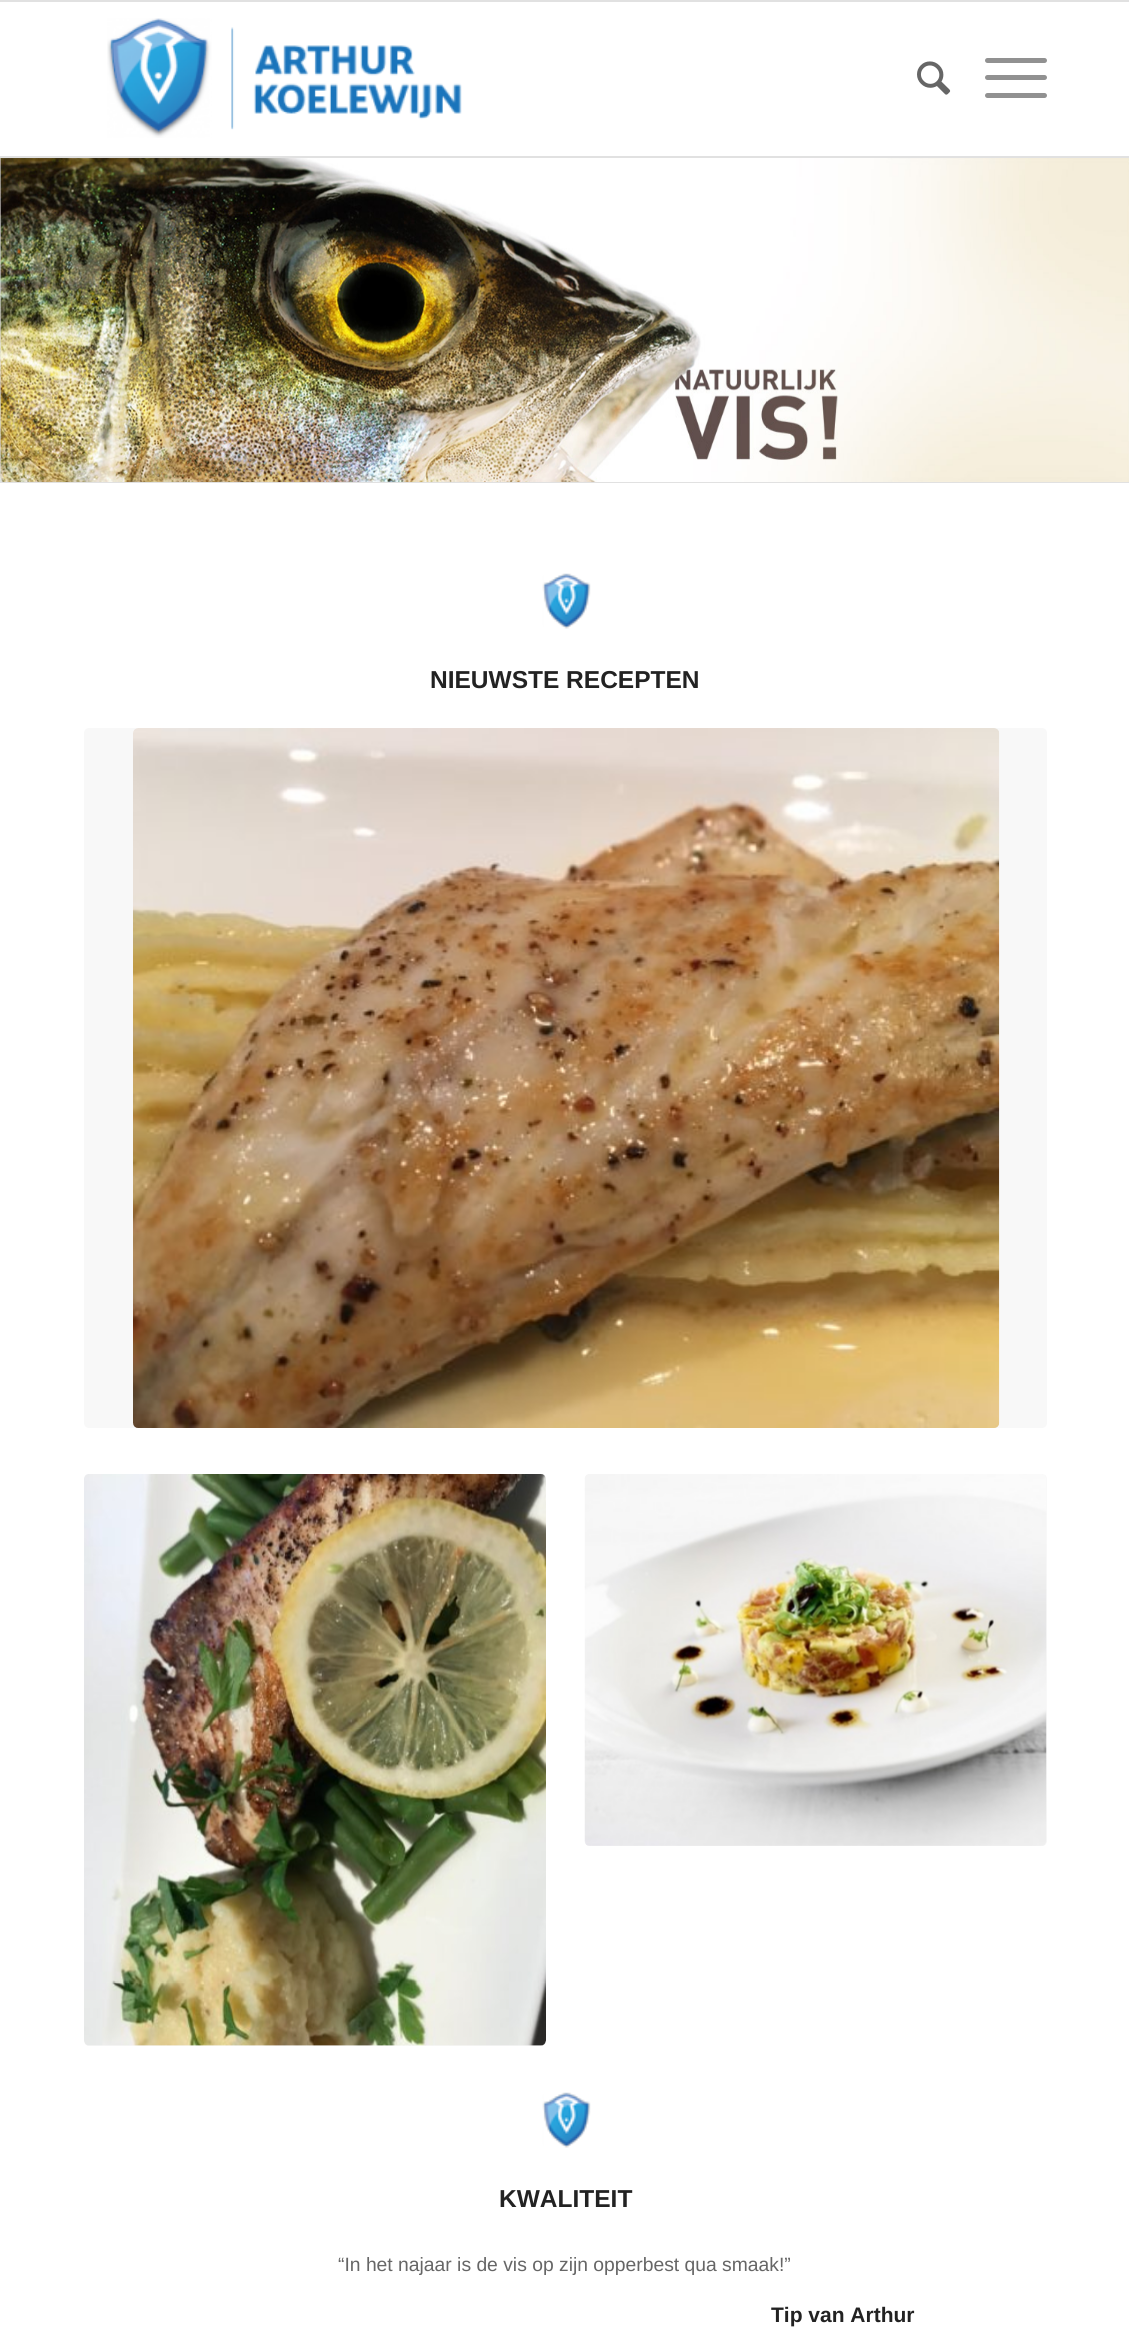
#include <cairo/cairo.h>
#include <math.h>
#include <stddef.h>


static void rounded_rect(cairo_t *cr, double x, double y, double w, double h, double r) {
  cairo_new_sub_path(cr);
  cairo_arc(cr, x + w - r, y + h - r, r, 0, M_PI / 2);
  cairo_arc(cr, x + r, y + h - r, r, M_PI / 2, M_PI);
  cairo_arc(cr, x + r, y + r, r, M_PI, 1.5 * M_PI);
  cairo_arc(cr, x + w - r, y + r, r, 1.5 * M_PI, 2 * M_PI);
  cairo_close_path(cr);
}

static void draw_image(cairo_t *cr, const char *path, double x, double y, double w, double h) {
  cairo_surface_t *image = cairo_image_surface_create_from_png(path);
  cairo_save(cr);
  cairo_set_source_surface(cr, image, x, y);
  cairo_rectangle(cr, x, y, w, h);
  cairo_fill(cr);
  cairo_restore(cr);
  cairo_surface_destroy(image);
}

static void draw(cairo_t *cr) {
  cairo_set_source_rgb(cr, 1, 1, 1);
  cairo_paint(cr);
  cairo_set_source_rgb(cr, 225 / 255.0, 225 / 255.0, 225 / 255.0);
  cairo_rectangle(cr, 0, 0, 1129, 2);
  cairo_fill(cr);
  cairo_rectangle(cr, 0, 156, 1129, 2);
  cairo_fill(cr);
  draw_image(cr, "images/1.png", 107, 18, 355, 120);
  draw_image(cr, "images/2.png", 917, 61, 34, 34);
  cairo_set_source_rgb(cr, 145 / 255.0, 145 / 255.0, 145 / 255.0);
  rounded_rect(cr, 985, 75, 62, 5, 2.5);
  cairo_fill(cr);
  rounded_rect(cr, 985, 58, 62, 5, 2.5);
  cairo_fill(cr);
  rounded_rect(cr, 985, 93, 62, 5, 2.5);
  cairo_fill(cr);
  draw_image(cr, "images/3.png", 0, 158, 1129, 324);
  cairo_set_source_rgb(cr, 225 / 255.0, 225 / 255.0, 225 / 255.0);
  cairo_rectangle(cr, 0, 482, 1129, 1);
  cairo_fill(cr);
  draw_image(cr, "images/4.png", 542, 573, 49, 56);
  cairo_set_source_rgb(cr, 248 / 255.0, 248 / 255.0, 248 / 255.0);
  rounded_rect(cr, 84, 728, 963, 700, 5);
  cairo_fill(cr);
  draw_image(cr, "images/5.png", 133, 728, 867, 700);
  rounded_rect(cr, 84, 1474, 462, 572, 5);
  cairo_fill(cr);
  draw_image(cr, "images/6.png", 84, 1474, 462, 572);
  rounded_rect(cr, 585, 1474, 462, 372, 5);
  cairo_fill(cr);
  draw_image(cr, "images/7.png", 584, 1474, 463, 372);
  draw_image(cr, "images/4.png", 542, 2092, 49, 56);
  cairo_select_font_face(cr, "Arimo", CAIRO_FONT_SLANT_NORMAL, CAIRO_FONT_WEIGHT_BOLD);
  cairo_set_font_size(cr, 24.5);
  cairo_set_source_rgb(cr, 34 / 255.0, 34 / 255.0, 34 / 255.0);
  cairo_move_to(cr, 430, 688);
  cairo_show_text(cr, "NIEUWSTE RECEPTEN");
  cairo_move_to(cr, 499, 2207);
  cairo_show_text(cr, "KWALITEIT");
  cairo_select_font_face(cr, "Arimo", CAIRO_FONT_SLANT_NORMAL, CAIRO_FONT_WEIGHT_NORMAL);
  cairo_set_font_size(cr, 19.3);
  cairo_set_source_rgb(cr, 102 / 255.0, 102 / 255.0, 102 / 255.0);
  cairo_move_to(cr, 338, 2271);
  cairo_show_text(cr, "“In het najaar is de vis op zijn opperbest qua smaak!”");
  cairo_select_font_face(cr, "Arimo", CAIRO_FONT_SLANT_NORMAL, CAIRO_FONT_WEIGHT_BOLD);
  cairo_set_font_size(cr, 21);
  cairo_set_source_rgb(cr, 34 / 255.0, 34 / 255.0, 34 / 255.0);
  cairo_move_to(cr, 771, 2322);
  cairo_show_text(cr, "Tip van Arthur");
}

int main(void) {
  cairo_surface_t *surface = cairo_image_surface_create(CAIRO_FORMAT_RGB24, 1129, 2343);
  cairo_t *cr = cairo_create(surface);
  cairo_font_options_t *options = cairo_font_options_create();
  cairo_font_options_set_hint_metrics(options, CAIRO_HINT_METRICS_OFF);
  cairo_font_options_set_hint_style(options, CAIRO_HINT_STYLE_NONE);
  cairo_set_font_options(cr, options);
  cairo_set_miter_limit(cr, 4);
  draw(cr);
  cairo_surface_write_to_png(surface, "out.png");
  cairo_font_options_destroy(options);
  cairo_destroy(cr);
  cairo_surface_destroy(surface);
  return 0;
}
